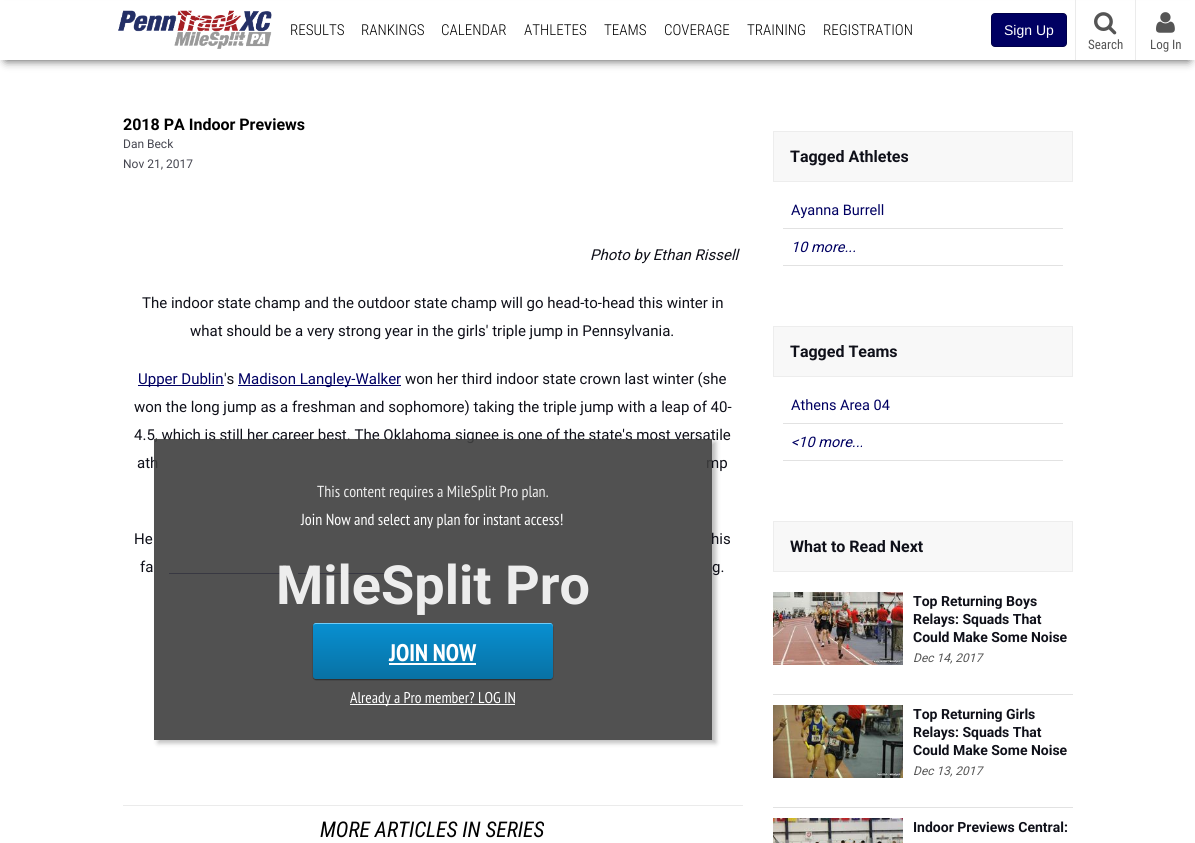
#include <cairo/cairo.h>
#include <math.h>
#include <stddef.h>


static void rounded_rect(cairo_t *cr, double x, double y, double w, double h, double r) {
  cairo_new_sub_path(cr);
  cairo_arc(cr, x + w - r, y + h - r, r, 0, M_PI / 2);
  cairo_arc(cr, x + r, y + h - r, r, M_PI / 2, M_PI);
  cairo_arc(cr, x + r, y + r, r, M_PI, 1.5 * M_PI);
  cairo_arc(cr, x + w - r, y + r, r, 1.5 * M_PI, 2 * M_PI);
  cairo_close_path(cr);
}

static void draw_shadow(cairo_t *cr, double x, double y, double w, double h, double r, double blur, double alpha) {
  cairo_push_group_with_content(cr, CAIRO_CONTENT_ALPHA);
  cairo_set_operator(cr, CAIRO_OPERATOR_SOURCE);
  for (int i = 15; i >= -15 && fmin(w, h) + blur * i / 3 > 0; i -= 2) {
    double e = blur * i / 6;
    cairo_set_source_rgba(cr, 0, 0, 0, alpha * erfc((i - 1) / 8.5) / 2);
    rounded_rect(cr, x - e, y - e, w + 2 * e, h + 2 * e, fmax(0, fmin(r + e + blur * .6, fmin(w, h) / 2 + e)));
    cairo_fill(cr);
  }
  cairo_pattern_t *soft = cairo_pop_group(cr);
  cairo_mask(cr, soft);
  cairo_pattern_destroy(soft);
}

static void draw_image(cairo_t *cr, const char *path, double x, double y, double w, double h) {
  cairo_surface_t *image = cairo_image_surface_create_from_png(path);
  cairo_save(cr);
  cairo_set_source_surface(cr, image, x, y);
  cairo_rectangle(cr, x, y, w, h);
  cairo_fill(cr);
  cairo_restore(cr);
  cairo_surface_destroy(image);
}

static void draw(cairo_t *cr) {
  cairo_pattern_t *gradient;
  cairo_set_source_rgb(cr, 1, 1, 1);
  cairo_paint(cr);
  cairo_set_source_rgb(cr, 0, 0, 0);
  draw_shadow(cr, 6, 12, 1183, 48, 0, 5, 0.75);
  cairo_set_source_rgb(cr, 1, 1, 1);
  cairo_rectangle(cr, 0, 1, 1195, 59);
  cairo_fill(cr);
  draw_image(cr, "images/1.png", 118, 10, 154, 39);
  cairo_set_source_rgb(cr, 0, 0, 98 / 255.0);
  rounded_rect(cr, 991.5, 13.5, 75, 33, 3.5);
  cairo_fill_preserve(cr);
  cairo_set_source_rgb(cr, 0, 0, 73 / 255.0);
  cairo_set_line_width(cr, 1);
  cairo_stroke(cr);
  cairo_set_source_rgb(cr, 235 / 255.0, 235 / 255.0, 235 / 255.0);
  cairo_rectangle(cr, 1075, 0, 1, 60);
  cairo_fill(cr);
  draw_image(cr, "images/2.png", 1094, 12, 23, 23);
  cairo_rectangle(cr, 1135, 0, 1, 60);
  cairo_fill(cr);
  draw_image(cr, "images/3.png", 1156, 12, 19, 21);
  cairo_set_source_rgb(cr, 0, 0, 98 / 255.0);
  cairo_rectangle(cr, 138, 385, 86, 1);
  cairo_fill(cr);
  cairo_rectangle(cr, 238, 385, 163, 1);
  cairo_fill(cr);
  cairo_rectangle(cr, 169, 573, 115, 1);
  cairo_fill(cr);
  cairo_rectangle(cr, 298, 573, 111, 1);
  cairo_fill(cr);
  cairo_save(cr);
  cairo_set_fill_rule(cr, CAIRO_FILL_RULE_EVEN_ODD);
  cairo_new_path(cr);
  cairo_move_to(cr, 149, 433);
  cairo_line_to(cr, 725, 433);
  cairo_line_to(cr, 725, 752);
  cairo_line_to(cr, 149, 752);
  cairo_close_path(cr);
  cairo_move_to(cr, 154, 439);
  cairo_line_to(cr, 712, 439);
  cairo_line_to(cr, 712, 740);
  cairo_line_to(cr, 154, 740);
  cairo_close_path(cr);
  cairo_clip(cr);
  cairo_set_source_rgb(cr, 0, 0, 0);
  draw_shadow(cr, 158, 442, 558, 301, 0, 2.5, 0.27);
  cairo_restore(cr);
  cairo_set_source_rgb(cr, 235 / 255.0, 235 / 255.0, 235 / 255.0);
  cairo_rectangle(cr, 123, 805, 620, 1);
  cairo_fill(cr);
  cairo_set_source_rgb(cr, 248 / 255.0, 248 / 255.0, 248 / 255.0);
  cairo_rectangle(cr, 773.5, 131.5, 299, 50);
  cairo_fill_preserve(cr);
  cairo_set_source_rgb(cr, 237 / 255.0, 237 / 255.0, 237 / 255.0);
  cairo_stroke(cr);
  cairo_set_source_rgb(cr, 226 / 255.0, 226 / 255.0, 226 / 255.0);
  cairo_rectangle(cr, 783, 228, 280, 1);
  cairo_fill(cr);
  cairo_rectangle(cr, 783, 265, 280, 1);
  cairo_fill(cr);
  cairo_set_source_rgb(cr, 248 / 255.0, 248 / 255.0, 248 / 255.0);
  cairo_rectangle(cr, 773.5, 326.5, 299, 50);
  cairo_fill_preserve(cr);
  cairo_set_source_rgb(cr, 237 / 255.0, 237 / 255.0, 237 / 255.0);
  cairo_stroke(cr);
  cairo_set_source_rgb(cr, 226 / 255.0, 226 / 255.0, 226 / 255.0);
  cairo_rectangle(cr, 783, 423, 280, 1);
  cairo_fill(cr);
  cairo_rectangle(cr, 783, 460, 280, 1);
  cairo_fill(cr);
  cairo_set_source_rgb(cr, 248 / 255.0, 248 / 255.0, 248 / 255.0);
  cairo_rectangle(cr, 773.5, 521.5, 299, 50);
  cairo_fill_preserve(cr);
  cairo_set_source_rgb(cr, 237 / 255.0, 237 / 255.0, 237 / 255.0);
  cairo_stroke(cr);
  cairo_set_source_rgb(cr, 226 / 255.0, 226 / 255.0, 226 / 255.0);
  cairo_rectangle(cr, 773, 694, 300, 1);
  cairo_fill(cr);
  draw_image(cr, "images/4.png", 773, 592, 130, 73);
  cairo_rectangle(cr, 773, 807, 300, 1);
  cairo_fill(cr);
  draw_image(cr, "images/5.png", 773, 705, 130, 73);
  draw_image(cr, "images/6.png", 773, 818, 130, 25);
  cairo_select_font_face(cr, "Roboto Condensed Light", CAIRO_FONT_SLANT_NORMAL, CAIRO_FONT_WEIGHT_NORMAL);
  cairo_set_font_size(cr, 15);
  cairo_set_source_rgb(cr, 0, 0, 0);
  cairo_move_to(cr, 290, 35);
  cairo_show_text(cr, "RESULTS");
  cairo_move_to(cr, 361, 35);
  cairo_show_text(cr, "RANKINGS");
  cairo_move_to(cr, 441, 35);
  cairo_show_text(cr, "CALENDAR");
  cairo_move_to(cr, 524, 35);
  cairo_show_text(cr, "ATHLETES");
  cairo_move_to(cr, 604, 35);
  cairo_show_text(cr, "TEAMS");
  cairo_move_to(cr, 664, 35);
  cairo_show_text(cr, "COVERAGE");
  cairo_move_to(cr, 747, 35);
  cairo_show_text(cr, "TRAINING");
  cairo_move_to(cr, 823, 35);
  cairo_show_text(cr, "REGISTRATION");
  cairo_select_font_face(cr, "Liberation Sans", CAIRO_FONT_SLANT_NORMAL, CAIRO_FONT_WEIGHT_NORMAL);
  cairo_set_font_size(cr, 14);
  cairo_set_source_rgb(cr, 1, 1, 1);
  cairo_move_to(cr, 1004, 35);
  cairo_show_text(cr, "Sign Up");
  cairo_select_font_face(cr, "Roboto Condensed", CAIRO_FONT_SLANT_NORMAL, CAIRO_FONT_WEIGHT_NORMAL);
  cairo_set_font_size(cr, 13);
  cairo_set_source_rgb(cr, 85 / 255.0, 85 / 255.0, 85 / 255.0);
  cairo_move_to(cr, 1088, 49);
  cairo_show_text(cr, "Search");
  cairo_move_to(cr, 1150, 49);
  cairo_show_text(cr, "Log In");
  cairo_select_font_face(cr, "Roboto", CAIRO_FONT_SLANT_NORMAL, CAIRO_FONT_WEIGHT_BOLD);
  cairo_set_font_size(cr, 16);
  cairo_set_source_rgb(cr, 0, 0, 0);
  cairo_move_to(cr, 123, 130);
  cairo_show_text(cr, "2018 PA Indoor Previews");
  cairo_select_font_face(cr, "Roboto", CAIRO_FONT_SLANT_NORMAL, CAIRO_FONT_WEIGHT_NORMAL);
  cairo_set_font_size(cr, 12);
  cairo_set_source_rgb(cr, 69 / 255.0, 70 / 255.0, 80 / 255.0);
  cairo_move_to(cr, 123, 148);
  cairo_show_text(cr, "Dan Beck");
  cairo_move_to(cr, 123, 168);
  cairo_show_text(cr, "Nov 21, 2017");
  cairo_select_font_face(cr, "Roboto", CAIRO_FONT_SLANT_ITALIC, CAIRO_FONT_WEIGHT_NORMAL);
  cairo_set_font_size(cr, 15);
  cairo_set_source_rgb(cr, 15 / 255.0, 16 / 255.0, 25 / 255.0);
  cairo_move_to(cr, 590, 260);
  cairo_show_text(cr, "Photo by Ethan Rissell");
  cairo_select_font_face(cr, "Roboto", CAIRO_FONT_SLANT_NORMAL, CAIRO_FONT_WEIGHT_NORMAL);
  cairo_move_to(cr, 142, 308);
  cairo_show_text(cr, "The indoor state champ and the outdoor state champ will go head-to-head this winter in");
  cairo_move_to(cr, 190, 336);
  cairo_show_text(cr, "what should be a very strong year in the girls' triple jump in Pennsylvania.");
  cairo_set_source_rgb(cr, 0, 0, 98 / 255.0);
  cairo_move_to(cr, 138, 384);
  cairo_show_text(cr, "Upper Dublin");
  cairo_set_source_rgb(cr, 15 / 255.0, 16 / 255.0, 25 / 255.0);
  cairo_move_to(cr, 224, 384);
  cairo_show_text(cr, "'s");
  cairo_set_source_rgb(cr, 0, 0, 98 / 255.0);
  cairo_move_to(cr, 238, 384);
  cairo_show_text(cr, "Madison Langley-Walker");
  cairo_set_source_rgb(cr, 15 / 255.0, 16 / 255.0, 25 / 255.0);
  cairo_move_to(cr, 405, 384);
  cairo_show_text(cr, "won her third indoor state crown last winter (she");
  cairo_move_to(cr, 134, 412);
  cairo_show_text(cr, "won the long jump as a freshman and sophomore) taking the triple jump with a leap of 40-");
  cairo_move_to(cr, 134, 440);
  cairo_show_text(cr, "4.5, which is still her career best. The Oklahoma signee is one of the state's most versatile");
  cairo_move_to(cr, 137, 468);
  cairo_show_text(cr, "ath");
  cairo_move_to(cr, 706, 468);
  cairo_show_text(cr, "mp");
  cairo_move_to(cr, 134, 544);
  cairo_show_text(cr, "He");
  cairo_move_to(cr, 711, 544);
  cairo_show_text(cr, "his");
  cairo_move_to(cr, 140, 572);
  cairo_show_text(cr, "fa");
  cairo_move_to(cr, 712, 572);
  cairo_show_text(cr, "g.");
  cairo_set_source_rgba(cr, 63 / 255.0, 63 / 255.0, 63 / 255.0, 0.9);
  cairo_rectangle(cr, 154, 439, 558, 301);
  cairo_fill(cr);
  cairo_select_font_face(cr, "PT Sans Narrow", CAIRO_FONT_SLANT_NORMAL, CAIRO_FONT_WEIGHT_NORMAL);
  cairo_set_font_size(cr, 16);
  cairo_set_source_rgb(cr, 237 / 255.0, 237 / 255.0, 237 / 255.0);
  cairo_move_to(cr, 317, 497);
  cairo_show_text(cr, "This content requires a MileSplit Pro plan.");
  cairo_set_source_rgb(cr, 1, 1, 1);
  cairo_move_to(cr, 301, 525);
  cairo_show_text(cr, "Join Now and select any plan for instant access!");
  cairo_select_font_face(cr, "Roboto", CAIRO_FONT_SLANT_NORMAL, CAIRO_FONT_WEIGHT_BOLD);
  cairo_set_font_size(cr, 54);
  cairo_set_source_rgb(cr, 237 / 255.0, 237 / 255.0, 237 / 255.0);
  cairo_move_to(cr, 276, 604);
  cairo_show_text(cr, "MileSplit Pro");
  cairo_save(cr);
  cairo_set_fill_rule(cr, CAIRO_FILL_RULE_EVEN_ODD);
  cairo_new_path(cr);
  cairo_move_to(cr, 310, 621);
  cairo_line_to(cr, 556, 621);
  cairo_line_to(cr, 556, 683);
  cairo_line_to(cr, 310, 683);
  cairo_close_path(cr);
  cairo_move_to(cr, 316, 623);
  cairo_line_to(cr, 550, 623);
  cairo_curve_to(cr, 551.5, 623, 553, 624.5, 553, 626);
  cairo_line_to(cr, 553, 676);
  cairo_curve_to(cr, 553, 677.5, 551.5, 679, 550, 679);
  cairo_line_to(cr, 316, 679);
  cairo_curve_to(cr, 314.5, 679, 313, 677.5, 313, 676);
  cairo_line_to(cr, 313, 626);
  cairo_curve_to(cr, 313, 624.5, 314.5, 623, 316, 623);
  cairo_close_path(cr);
  cairo_clip(cr);
  cairo_set_source_rgb(cr, 0, 0, 0);
  draw_shadow(cr, 313, 624, 240, 56, 3, 0.5, 0.45);
  cairo_restore(cr);
  gradient = cairo_pattern_create_linear(433, 623, 433, 679);
  cairo_pattern_add_color_stop_rgba(gradient, 0, 0, 151 / 255.0, 224 / 255.0, 0.9);
  cairo_pattern_add_color_stop_rgba(gradient, 1, 0, 117 / 255.0, 173 / 255.0, 0.9);
  cairo_set_source(cr, gradient);
  cairo_pattern_destroy(gradient);
  rounded_rect(cr, 313, 623, 240, 56, 3);
  cairo_fill(cr);
  cairo_set_source_rgba(cr, 122 / 255.0, 212 / 255.0, 1, 0.9);
  cairo_new_path(cr);
  cairo_move_to(cr, 316, 624);
  cairo_line_to(cr, 551, 624);
  cairo_line_to(cr, 553, 625);
  cairo_line_to(cr, 553, 627);
  cairo_curve_to(cr, 553, 625, 552, 623, 550, 623);
  cairo_line_to(cr, 316, 623);
  cairo_curve_to(cr, 314, 623, 313, 625, 313, 627);
  cairo_curve_to(cr, 313, 625, 314, 624, 316, 624);
  cairo_close_path(cr);
  cairo_fill(cr);
  cairo_select_font_face(cr, "PT Sans Narrow", CAIRO_FONT_SLANT_NORMAL, CAIRO_FONT_WEIGHT_BOLD);
  cairo_set_font_size(cr, 24);
  cairo_set_source_rgb(cr, 1, 1, 1);
  cairo_move_to(cr, 389, 661);
  cairo_show_text(cr, "JOIN NOW");
  cairo_rectangle(cr, 389, 663, 87, 2);
  cairo_fill(cr);
  cairo_rectangle(cr, 350, 704, 165, 1);
  cairo_fill(cr);
  cairo_select_font_face(cr, "PT Sans Narrow", CAIRO_FONT_SLANT_NORMAL, CAIRO_FONT_WEIGHT_NORMAL);
  cairo_set_font_size(cr, 15.6);
  cairo_move_to(cr, 350, 703);
  cairo_show_text(cr, "Already a Pro member? LOG IN");
  cairo_select_font_face(cr, "Roboto Condensed", CAIRO_FONT_SLANT_ITALIC, CAIRO_FONT_WEIGHT_NORMAL);
  cairo_set_font_size(cr, 21.6);
  cairo_set_source_rgb(cr, 0, 0, 0);
  cairo_move_to(cr, 320, 837);
  cairo_show_text(cr, "MORE ARTICLES IN SERIES");
  cairo_select_font_face(cr, "Roboto", CAIRO_FONT_SLANT_NORMAL, CAIRO_FONT_WEIGHT_BOLD);
  cairo_set_font_size(cr, 16);
  cairo_set_source_rgb(cr, 15 / 255.0, 16 / 255.0, 25 / 255.0);
  cairo_move_to(cr, 790, 162);
  cairo_show_text(cr, "Tagged Athletes");
  cairo_select_font_face(cr, "Roboto", CAIRO_FONT_SLANT_NORMAL, CAIRO_FONT_WEIGHT_NORMAL);
  cairo_set_font_size(cr, 14.5);
  cairo_set_source_rgb(cr, 0, 0, 98 / 255.0);
  cairo_move_to(cr, 791, 215);
  cairo_show_text(cr, "Ayanna Burrell");
  cairo_select_font_face(cr, "Roboto", CAIRO_FONT_SLANT_ITALIC, CAIRO_FONT_WEIGHT_NORMAL);
  cairo_move_to(cr, 791, 252);
  cairo_show_text(cr, "10 more...");
  cairo_select_font_face(cr, "Roboto", CAIRO_FONT_SLANT_NORMAL, CAIRO_FONT_WEIGHT_BOLD);
  cairo_set_font_size(cr, 16);
  cairo_set_source_rgb(cr, 15 / 255.0, 16 / 255.0, 25 / 255.0);
  cairo_move_to(cr, 790, 357);
  cairo_show_text(cr, "Tagged Teams");
  cairo_select_font_face(cr, "Roboto", CAIRO_FONT_SLANT_NORMAL, CAIRO_FONT_WEIGHT_NORMAL);
  cairo_set_font_size(cr, 14.5);
  cairo_set_source_rgb(cr, 0, 0, 98 / 255.0);
  cairo_move_to(cr, 791, 410);
  cairo_show_text(cr, "Athens Area 04");
  cairo_select_font_face(cr, "Roboto", CAIRO_FONT_SLANT_ITALIC, CAIRO_FONT_WEIGHT_NORMAL);
  cairo_move_to(cr, 791, 447);
  cairo_show_text(cr, "<10 more...");
  cairo_select_font_face(cr, "Roboto", CAIRO_FONT_SLANT_NORMAL, CAIRO_FONT_WEIGHT_BOLD);
  cairo_set_font_size(cr, 16);
  cairo_set_source_rgb(cr, 15 / 255.0, 16 / 255.0, 25 / 255.0);
  cairo_move_to(cr, 790, 552);
  cairo_show_text(cr, "What to Read Next");
  cairo_select_font_face(cr, "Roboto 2", CAIRO_FONT_SLANT_NORMAL, CAIRO_FONT_WEIGHT_BOLD);
  cairo_set_font_size(cr, 14);
  cairo_move_to(cr, 913, 606);
  cairo_show_text(cr, "Top Returning Boys");
  cairo_move_to(cr, 913, 624);
  cairo_show_text(cr, "Relays: Squads That");
  cairo_move_to(cr, 913, 642);
  cairo_show_text(cr, "Could Make Some Noise");
  cairo_select_font_face(cr, "Roboto", CAIRO_FONT_SLANT_ITALIC, CAIRO_FONT_WEIGHT_NORMAL);
  cairo_set_font_size(cr, 12);
  cairo_set_source_rgb(cr, 85 / 255.0, 85 / 255.0, 85 / 255.0);
  cairo_move_to(cr, 913, 662);
  cairo_show_text(cr, "Dec 14, 2017");
  cairo_select_font_face(cr, "Roboto 2", CAIRO_FONT_SLANT_NORMAL, CAIRO_FONT_WEIGHT_BOLD);
  cairo_set_font_size(cr, 14);
  cairo_set_source_rgb(cr, 15 / 255.0, 16 / 255.0, 25 / 255.0);
  cairo_move_to(cr, 913, 719);
  cairo_show_text(cr, "Top Returning Girls");
  cairo_move_to(cr, 913, 737);
  cairo_show_text(cr, "Relays: Squads That");
  cairo_move_to(cr, 913, 755);
  cairo_show_text(cr, "Could Make Some Noise");
  cairo_select_font_face(cr, "Roboto", CAIRO_FONT_SLANT_ITALIC, CAIRO_FONT_WEIGHT_NORMAL);
  cairo_set_font_size(cr, 12);
  cairo_set_source_rgb(cr, 85 / 255.0, 85 / 255.0, 85 / 255.0);
  cairo_move_to(cr, 913, 775);
  cairo_show_text(cr, "Dec 13, 2017");
  cairo_select_font_face(cr, "Roboto 2", CAIRO_FONT_SLANT_NORMAL, CAIRO_FONT_WEIGHT_BOLD);
  cairo_set_font_size(cr, 14);
  cairo_set_source_rgb(cr, 15 / 255.0, 16 / 255.0, 25 / 255.0);
  cairo_move_to(cr, 913, 832);
  cairo_show_text(cr, "Indoor Previews Central:");
}

int main(void) {
  cairo_surface_t *surface = cairo_image_surface_create(CAIRO_FORMAT_RGB24, 1195, 843);
  cairo_t *cr = cairo_create(surface);
  cairo_font_options_t *options = cairo_font_options_create();
  cairo_font_options_set_hint_metrics(options, CAIRO_HINT_METRICS_OFF);
  cairo_font_options_set_hint_style(options, CAIRO_HINT_STYLE_NONE);
  cairo_set_font_options(cr, options);
  cairo_set_miter_limit(cr, 4);
  draw(cr);
  cairo_surface_write_to_png(surface, "out.png");
  cairo_font_options_destroy(options);
  cairo_destroy(cr);
  cairo_surface_destroy(surface);
  return 0;
}
